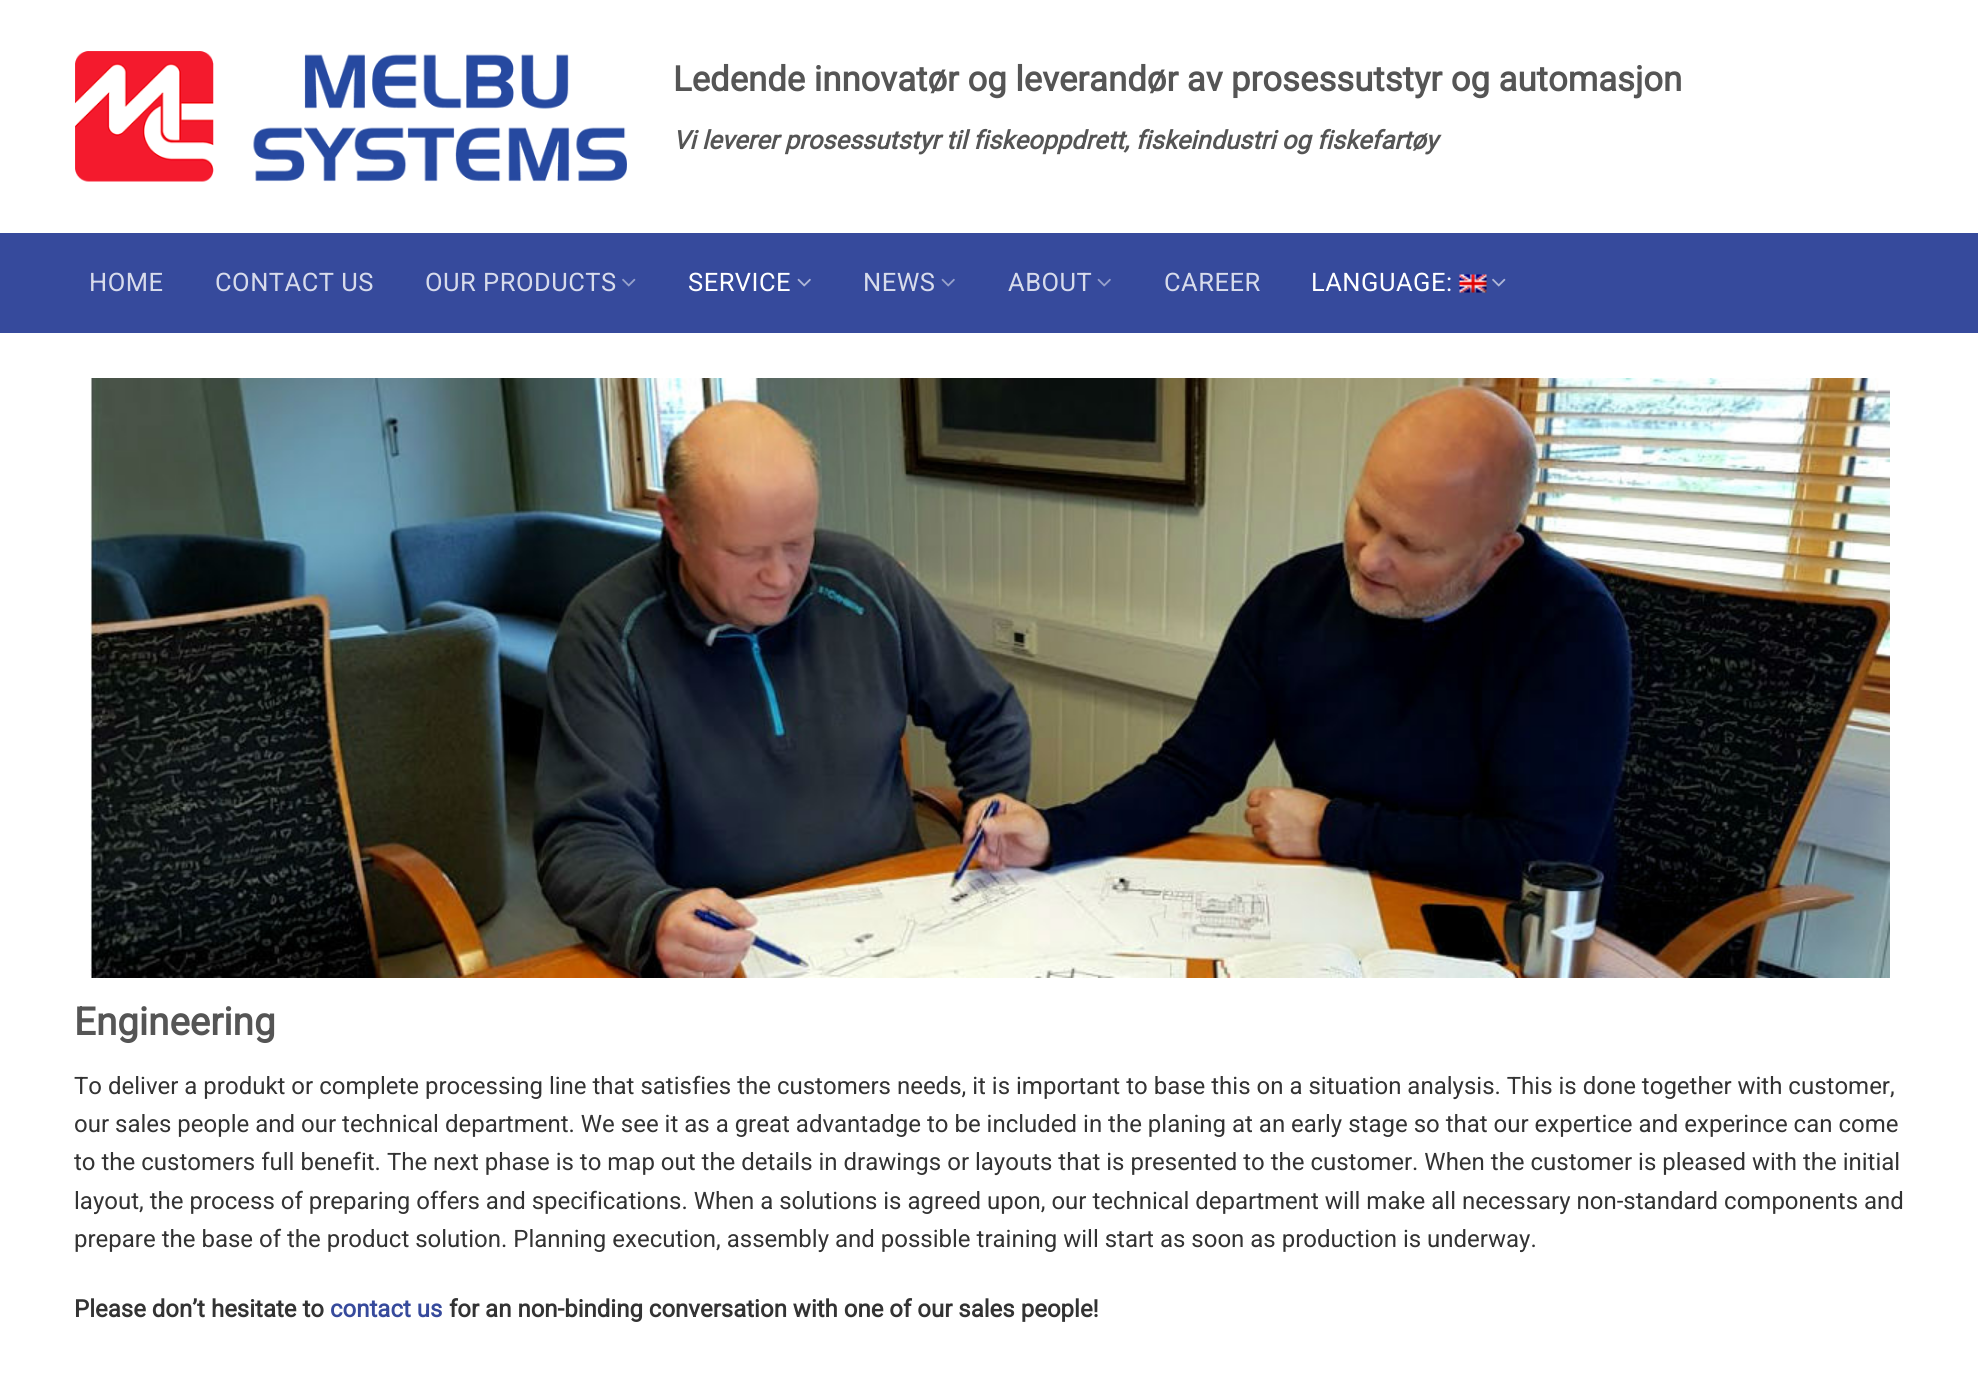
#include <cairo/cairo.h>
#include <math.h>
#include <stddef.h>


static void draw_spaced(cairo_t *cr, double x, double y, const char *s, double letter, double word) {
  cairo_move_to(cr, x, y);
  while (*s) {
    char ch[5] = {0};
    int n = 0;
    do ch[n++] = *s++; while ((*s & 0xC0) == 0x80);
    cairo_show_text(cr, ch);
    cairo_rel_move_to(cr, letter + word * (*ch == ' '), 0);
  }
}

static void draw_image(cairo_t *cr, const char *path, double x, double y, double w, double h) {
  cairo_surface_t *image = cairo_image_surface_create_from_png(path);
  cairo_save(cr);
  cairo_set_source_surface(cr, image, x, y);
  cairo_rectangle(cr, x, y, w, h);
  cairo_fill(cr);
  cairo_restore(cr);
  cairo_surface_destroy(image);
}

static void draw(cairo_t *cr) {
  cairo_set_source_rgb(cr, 1, 1, 1);
  cairo_paint(cr);
  draw_image(cr, "images/1.png", 75, 51, 552, 131);
  cairo_set_source_rgb(cr, 54 / 255.0, 74 / 255.0, 156 / 255.0);
  cairo_rectangle(cr, 0, 233, 1978, 100);
  cairo_fill(cr);
  draw_image(cr, "images/2.png", 622, 278, 14, 9);
  draw_image(cr, "images/3.png", 797, 278, 14, 9);
  draw_image(cr, "images/4.png", 941, 278, 14, 9);
  draw_image(cr, "images/4.png", 1097, 278, 14, 9);
  draw_image(cr, "images/5.png", 1459, 274, 28, 19);
  draw_image(cr, "images/6.png", 1492, 278, 14, 9);
  draw_image(cr, "images/7.png", 90, 378, 1800, 600);
  cairo_select_font_face(cr, "Roboto", CAIRO_FONT_SLANT_NORMAL, CAIRO_FONT_WEIGHT_BOLD);
  cairo_set_font_size(cr, 34.7);
  cairo_set_source_rgb(cr, 85 / 255.0, 85 / 255.0, 85 / 255.0);
  cairo_move_to(cr, 673, 91);
  cairo_show_text(cr, "Ledende innovatør og leverandør av prosessutstyr og automasjon");
  cairo_select_font_face(cr, "Roboto", CAIRO_FONT_SLANT_ITALIC, CAIRO_FONT_WEIGHT_BOLD);
  cairo_set_font_size(cr, 25.5);
  cairo_move_to(cr, 673, 149);
  cairo_show_text(cr, "Vi leverer prosessutstyr til fiskeoppdrett, fiskeindustri og fiskefartøy");
  cairo_select_font_face(cr, "Roboto", CAIRO_FONT_SLANT_NORMAL, CAIRO_FONT_WEIGHT_NORMAL);
  cairo_set_source_rgb(cr, 215 / 255.0, 219 / 255.0, 235 / 255.0);
  draw_spaced(cr, 89, 291, "HOME", 0.5, 0);
  draw_spaced(cr, 215, 291, "CONTACT US", 0.5, 0);
  draw_spaced(cr, 425, 291, "OUR PRODUCTS", 0.5, 0);
  cairo_set_source_rgb(cr, 1, 1, 1);
  draw_spaced(cr, 688, 291, "SERVICE", 0.5, 0);
  cairo_set_source_rgb(cr, 215 / 255.0, 219 / 255.0, 235 / 255.0);
  draw_spaced(cr, 863, 291, "NEWS", 0.5, 0);
  draw_spaced(cr, 1008, 291, "ABOUT", 0.5, 0);
  draw_spaced(cr, 1164, 291, "CAREER", 0.5, 0);
  cairo_set_source_rgb(cr, 1, 1, 1);
  draw_spaced(cr, 1311, 291, "LANGUAGE:", 0.5, 0);
  cairo_select_font_face(cr, "Roboto", CAIRO_FONT_SLANT_NORMAL, CAIRO_FONT_WEIGHT_BOLD);
  cairo_set_font_size(cr, 38.5);
  cairo_set_source_rgb(cr, 85 / 255.0, 85 / 255.0, 85 / 255.0);
  cairo_move_to(cr, 74, 1035);
  cairo_show_text(cr, "Engineering");
  cairo_select_font_face(cr, "Roboto", CAIRO_FONT_SLANT_NORMAL, CAIRO_FONT_WEIGHT_NORMAL);
  cairo_set_font_size(cr, 24);
  cairo_set_source_rgb(cr, 51 / 255.0, 51 / 255.0, 51 / 255.0);
  cairo_move_to(cr, 74, 1094);
  cairo_show_text(cr, "To deliver a produkt or complete processing line that satisfies the customers needs, it is important to base this on a situation analysis. This is done together with customer,");
  cairo_move_to(cr, 74, 1132);
  cairo_show_text(cr, "our sales people and our technical department. We see it as a great advantadge to be included in the planing at an early stage so that our expertice and experince can come");
  cairo_move_to(cr, 74, 1170);
  cairo_show_text(cr, "to the customers full benefit. The next phase is to map out the details in drawings or layouts that is presented to the customer. When the customer is pleased with the initial");
  cairo_move_to(cr, 74, 1209);
  cairo_show_text(cr, "layout, the process of preparing offers and specifications. When a solutions is agreed upon, our technical department will make all necessary non-standard components and");
  cairo_move_to(cr, 74, 1247);
  cairo_show_text(cr, "prepare the base of the product solution. Planning execution, assembly and possible training will start as soon as production is underway.");
  cairo_select_font_face(cr, "Roboto", CAIRO_FONT_SLANT_NORMAL, CAIRO_FONT_WEIGHT_BOLD);
  cairo_move_to(cr, 74, 1317);
  cairo_show_text(cr, "Please don’t hesitate to");
  cairo_set_source_rgb(cr, 54 / 255.0, 74 / 255.0, 156 / 255.0);
  cairo_move_to(cr, 330, 1317);
  cairo_show_text(cr, "contact us");
  cairo_set_source_rgb(cr, 51 / 255.0, 51 / 255.0, 51 / 255.0);
  cairo_move_to(cr, 449, 1317);
  cairo_show_text(cr, "for an non-binding conversation with one of our sales people!");
}

int main(void) {
  cairo_surface_t *surface = cairo_image_surface_create(CAIRO_FORMAT_RGB24, 1978, 1374);
  cairo_t *cr = cairo_create(surface);
  cairo_font_options_t *options = cairo_font_options_create();
  cairo_font_options_set_hint_metrics(options, CAIRO_HINT_METRICS_OFF);
  cairo_font_options_set_hint_style(options, CAIRO_HINT_STYLE_NONE);
  cairo_set_font_options(cr, options);
  cairo_set_miter_limit(cr, 4);
  draw(cr);
  cairo_surface_write_to_png(surface, "out.png");
  cairo_font_options_destroy(options);
  cairo_destroy(cr);
  cairo_surface_destroy(surface);
  return 0;
}
